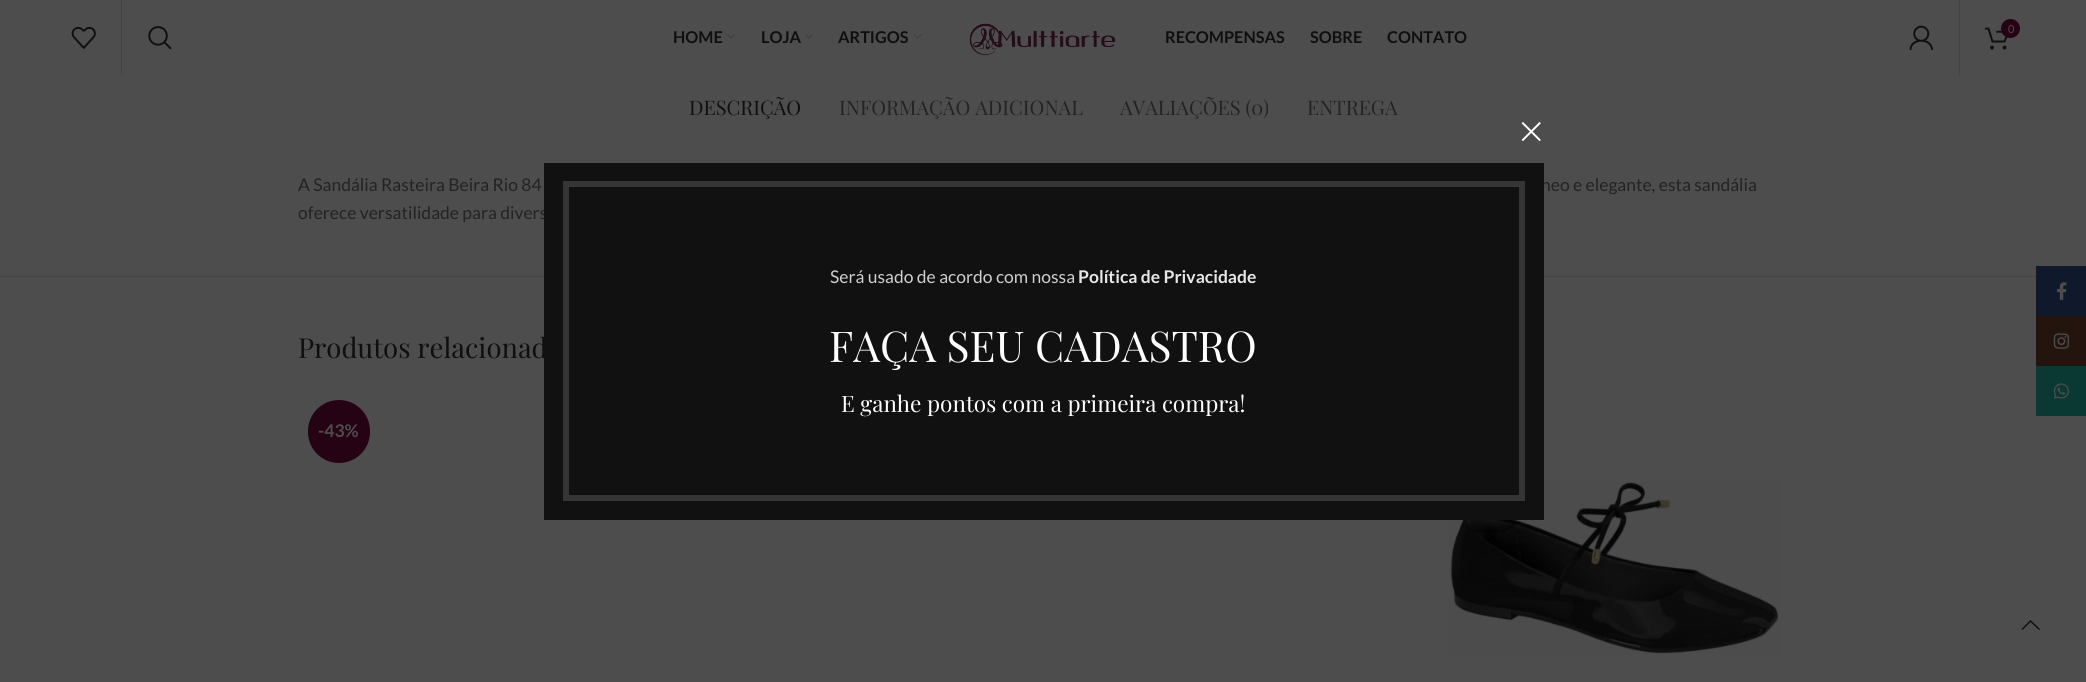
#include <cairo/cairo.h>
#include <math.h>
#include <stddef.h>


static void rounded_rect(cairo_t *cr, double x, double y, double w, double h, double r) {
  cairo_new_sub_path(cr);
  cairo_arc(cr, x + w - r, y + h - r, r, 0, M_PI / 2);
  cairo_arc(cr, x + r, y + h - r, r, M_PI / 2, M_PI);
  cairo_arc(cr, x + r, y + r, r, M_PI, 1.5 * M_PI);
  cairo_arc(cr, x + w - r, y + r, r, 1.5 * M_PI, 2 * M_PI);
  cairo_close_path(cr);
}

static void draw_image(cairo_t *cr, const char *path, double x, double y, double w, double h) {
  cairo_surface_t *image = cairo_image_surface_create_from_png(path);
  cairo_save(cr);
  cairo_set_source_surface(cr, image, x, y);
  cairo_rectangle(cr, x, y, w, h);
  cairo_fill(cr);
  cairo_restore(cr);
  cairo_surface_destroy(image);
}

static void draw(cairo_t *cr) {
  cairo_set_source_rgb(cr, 77 / 255.0, 77 / 255.0, 77 / 255.0);
  cairo_paint(cr);
  draw_image(cr, "images/1.png", 71, 26, 25, 23);
  cairo_set_source_rgb(cr, 68 / 255.0, 68 / 255.0, 68 / 255.0);
  cairo_rectangle(cr, 121, 0, 1, 75);
  cairo_fill(cr);
  draw_image(cr, "images/2.png", 148, 26, 24, 24);
  draw_image(cr, "images/3.png", 727, 34, 8, 5);
  draw_image(cr, "images/4.png", 805, 34, 8, 5);
  draw_image(cr, "images/5.png", 914, 34, 8, 5);
  draw_image(cr, "images/6.png", 969, 23, 147, 33);
  draw_image(cr, "images/7.png", 1909, 25, 24, 25);
  cairo_rectangle(cr, 1959, 0, 1, 75);
  cairo_fill(cr);
  draw_image(cr, "images/8.png", 1985, 27, 23, 23);
  cairo_set_source_rgb(cr, 37 / 255.0, 2 / 255.0, 20 / 255.0);
  cairo_arc(cr, 2010.5, 28.5, 9.5, 0, 2 * M_PI);
  cairo_fill(cr);
  cairo_set_source_rgb(cr, 68 / 255.0, 68 / 255.0, 68 / 255.0);
  cairo_rectangle(cr, 0, 276, 2036, 1);
  cairo_fill(cr);
  cairo_set_source_rgb(cr, 37 / 255.0, 2 / 255.0, 20 / 255.0);
  rounded_rect(cr, 308, 400, 62, 63, 31);
  cairo_fill(cr);
  draw_image(cr, "images/9.png", 1449, 482, 331, 172);
  cairo_set_source_rgb(cr, 16 / 255.0, 25 / 255.0, 44 / 255.0);
  cairo_rectangle(cr, 2036, 266, 50, 50);
  cairo_fill(cr);
  draw_image(cr, "images/10.png", 2057, 282, 10, 18);
  cairo_set_source_rgb(cr, 36 / 255.0, 20 / 255.0, 14 / 255.0);
  cairo_rectangle(cr, 2036, 316, 50, 50);
  cairo_fill(cr);
  draw_image(cr, "images/11.png", 2053, 333, 17, 16);
  cairo_set_source_rgb(cr, 9 / 255.0, 57 / 255.0, 50 / 255.0);
  cairo_rectangle(cr, 2036, 366, 50, 50);
  cairo_fill(cr);
  draw_image(cr, "images/12.png", 2053, 383, 16, 16);
  draw_image(cr, "images/13.png", 1521, 122, 20, 20);
  cairo_set_source_rgb(cr, 15 / 255.0, 15 / 255.0, 15 / 255.0);
  cairo_new_path(cr);
  cairo_move_to(cr, 2039, 630);
  cairo_line_to(cr, 2040, 629);
  cairo_line_to(cr, 2030.5, 620);
  cairo_line_to(cr, 2021.5, 629);
  cairo_line_to(cr, 2022.5, 630);
  cairo_line_to(cr, 2030.5, 622);
  cairo_close_path(cr);
  cairo_fill(cr);
  cairo_select_font_face(cr, "Lato", CAIRO_FONT_SLANT_NORMAL, CAIRO_FONT_WEIGHT_BOLD);
  cairo_set_font_size(cr, 16.25);
  cairo_move_to(cr, 673, 43);
  cairo_show_text(cr, "HOME");
  cairo_move_to(cr, 761, 43);
  cairo_show_text(cr, "LOJA");
  cairo_move_to(cr, 838, 43);
  cairo_show_text(cr, "ARTIGOS");
  cairo_move_to(cr, 1165, 43);
  cairo_show_text(cr, "RECOMPENSAS");
  cairo_move_to(cr, 1310, 43);
  cairo_show_text(cr, "SOBRE");
  cairo_move_to(cr, 1387, 43);
  cairo_show_text(cr, "CONTATO");
  cairo_select_font_face(cr, "Lato", CAIRO_FONT_SLANT_NORMAL, CAIRO_FONT_WEIGHT_NORMAL);
  cairo_set_font_size(cr, 11);
  cairo_set_source_rgb(cr, 77 / 255.0, 77 / 255.0, 77 / 255.0);
  cairo_move_to(cr, 2008, 33);
  cairo_show_text(cr, "0");
  cairo_select_font_face(cr, "Playfair Display", CAIRO_FONT_SLANT_NORMAL, CAIRO_FONT_WEIGHT_NORMAL);
  cairo_set_font_size(cr, 20);
  cairo_set_source_rgb(cr, 15 / 255.0, 15 / 255.0, 15 / 255.0);
  cairo_move_to(cr, 689, 115);
  cairo_show_text(cr, "DESCRIÇÃO");
  cairo_set_source_rgb(cr, 35 / 255.0, 35 / 255.0, 35 / 255.0);
  cairo_move_to(cr, 839, 115);
  cairo_show_text(cr, "INFORMAÇÃO ADICIONAL");
  cairo_move_to(cr, 1120, 115);
  cairo_show_text(cr, "AVALIAÇÕES (0)");
  cairo_move_to(cr, 1307, 115);
  cairo_show_text(cr, "ENTREGA");
  cairo_select_font_face(cr, "Lato", CAIRO_FONT_SLANT_NORMAL, CAIRO_FONT_WEIGHT_NORMAL);
  cairo_set_font_size(cr, 17.5);
  cairo_move_to(cr, 298, 191);
  cairo_show_text(cr, "A Sandália Rasteira Beira Rio 84");
  cairo_move_to(cr, 1541, 191);
  cairo_show_text(cr, "neo e elegante, esta sandália");
  cairo_move_to(cr, 298, 219);
  cairo_show_text(cr, "oferece versatilidade para divers");
  cairo_select_font_face(cr, "Playfair Display", CAIRO_FONT_SLANT_NORMAL, CAIRO_FONT_WEIGHT_NORMAL);
  cairo_set_font_size(cr, 27.5);
  cairo_set_source_rgb(cr, 15 / 255.0, 15 / 255.0, 15 / 255.0);
  cairo_move_to(cr, 298, 358);
  cairo_show_text(cr, "Produtos relacionad");
  cairo_select_font_face(cr, "Lato", CAIRO_FONT_SLANT_NORMAL, CAIRO_FONT_WEIGHT_BOLD);
  cairo_set_font_size(cr, 17.5);
  cairo_set_source_rgb(cr, 77 / 255.0, 77 / 255.0, 77 / 255.0);
  cairo_move_to(cr, 318, 437);
  cairo_show_text(cr, "-43%");
  cairo_set_source_rgb(cr, 17 / 255.0, 17 / 255.0, 17 / 255.0);
  cairo_rectangle(cr, 544, 163, 1000, 357);
  cairo_fill(cr);
  cairo_rectangle(cr, 566, 184, 956, 314);
  cairo_set_source_rgb(cr, 53 / 255.0, 53 / 255.0, 53 / 255.0);
  cairo_set_line_width(cr, 6);
  cairo_stroke(cr);
  cairo_select_font_face(cr, "Lato", CAIRO_FONT_SLANT_NORMAL, CAIRO_FONT_WEIGHT_NORMAL);
  cairo_set_source_rgb(cr, 207 / 255.0, 207 / 255.0, 207 / 255.0);
  cairo_move_to(cr, 830, 283);
  cairo_show_text(cr, "Será usado de acordo com nossa");
  cairo_select_font_face(cr, "Lato", CAIRO_FONT_SLANT_NORMAL, CAIRO_FONT_WEIGHT_BOLD);
  cairo_set_source_rgb(cr, 231 / 255.0, 231 / 255.0, 231 / 255.0);
  cairo_move_to(cr, 1078, 283);
  cairo_show_text(cr, "Política de Privacidade");
  cairo_select_font_face(cr, "Playfair Display", CAIRO_FONT_SLANT_NORMAL, CAIRO_FONT_WEIGHT_NORMAL);
  cairo_set_font_size(cr, 42.5);
  cairo_set_source_rgb(cr, 1, 1, 1);
  cairo_move_to(cr, 829, 362);
  cairo_show_text(cr, "FAÇA SEU CADASTRO");
  cairo_set_font_size(cr, 22.5);
  cairo_move_to(cr, 841, 412);
  cairo_show_text(cr, "E ganhe pontos com a primeira compra!");
}

int main(void) {
  cairo_surface_t *surface = cairo_image_surface_create(CAIRO_FORMAT_RGB24, 2086, 682);
  cairo_t *cr = cairo_create(surface);
  cairo_font_options_t *options = cairo_font_options_create();
  cairo_font_options_set_hint_metrics(options, CAIRO_HINT_METRICS_OFF);
  cairo_font_options_set_hint_style(options, CAIRO_HINT_STYLE_NONE);
  cairo_set_font_options(cr, options);
  cairo_set_miter_limit(cr, 4);
  draw(cr);
  cairo_surface_write_to_png(surface, "out.png");
  cairo_font_options_destroy(options);
  cairo_destroy(cr);
  cairo_surface_destroy(surface);
  return 0;
}
